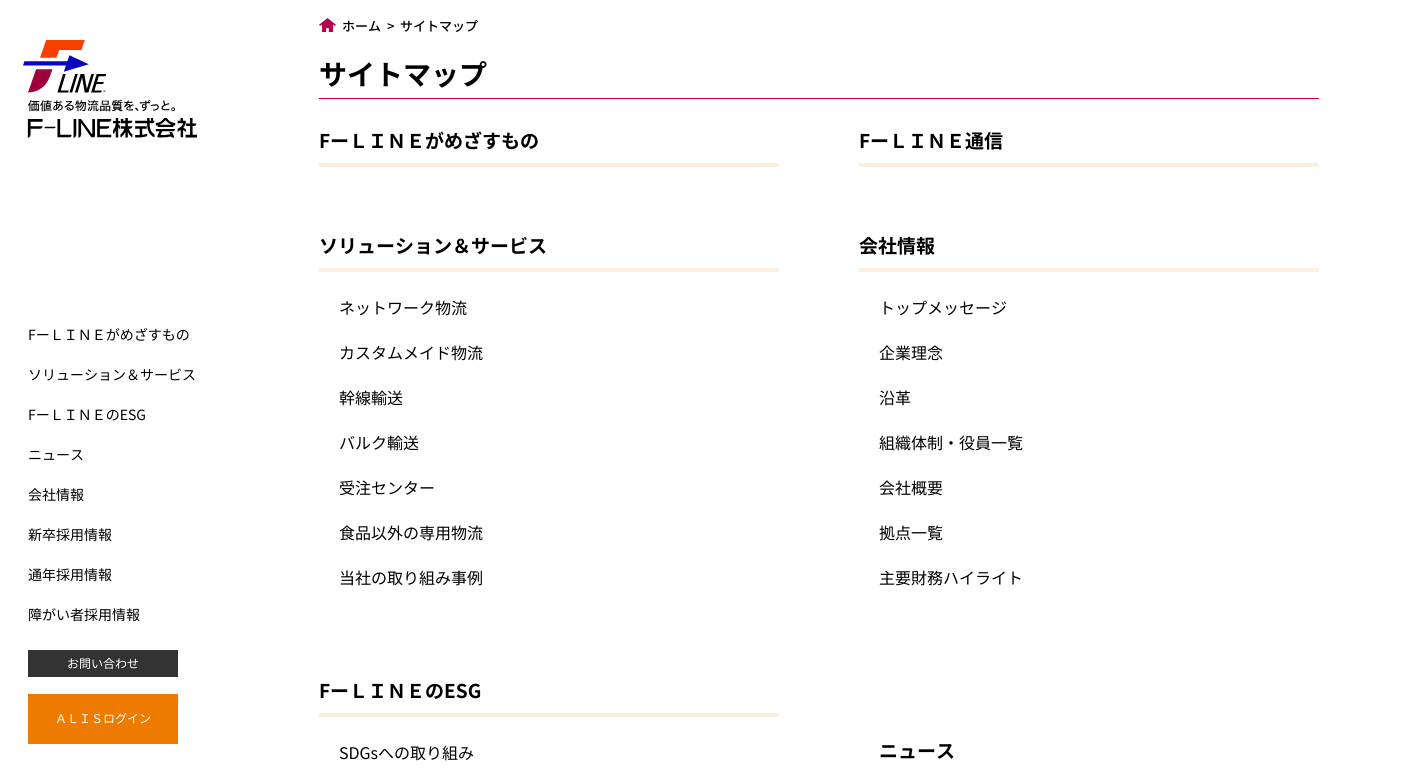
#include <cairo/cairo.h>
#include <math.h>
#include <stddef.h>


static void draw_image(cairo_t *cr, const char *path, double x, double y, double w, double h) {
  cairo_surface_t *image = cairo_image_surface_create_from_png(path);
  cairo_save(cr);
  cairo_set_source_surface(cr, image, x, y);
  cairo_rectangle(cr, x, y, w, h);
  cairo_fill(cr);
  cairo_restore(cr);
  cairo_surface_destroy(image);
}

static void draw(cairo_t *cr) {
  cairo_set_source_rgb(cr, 1, 1, 1);
  cairo_paint(cr);
  draw_image(cr, "images/1.png", 23, 40, 174, 98);
  cairo_set_source_rgb(cr, 51 / 255.0, 51 / 255.0, 51 / 255.0);
  cairo_rectangle(cr, 28, 650, 150, 27);
  cairo_fill(cr);
  cairo_set_source_rgb(cr, 239 / 255.0, 122 / 255.0, 0);
  cairo_rectangle(cr, 28, 694, 150, 50);
  cairo_fill(cr);
  draw_image(cr, "images/2.png", 319, 18, 17, 14);
  cairo_set_source_rgb(cr, 179 / 255.0, 0, 77 / 255.0);
  cairo_rectangle(cr, 319, 98, 1000, 1);
  cairo_fill(cr);
  cairo_set_source_rgb(cr, 253 / 255.0, 239 / 255.0, 224 / 255.0);
  cairo_rectangle(cr, 319, 163, 460, 4);
  cairo_fill(cr);
  cairo_rectangle(cr, 859, 163, 460, 4);
  cairo_fill(cr);
  cairo_rectangle(cr, 319, 268, 460, 4);
  cairo_fill(cr);
  cairo_rectangle(cr, 859, 268, 460, 4);
  cairo_fill(cr);
  cairo_rectangle(cr, 319, 713, 460, 4);
  cairo_fill(cr);
  cairo_select_font_face(cr, "Noto Sans JP", CAIRO_FONT_SLANT_NORMAL, CAIRO_FONT_WEIGHT_NORMAL);
  cairo_set_font_size(cr, 14);
  cairo_set_source_rgb(cr, 0, 0, 0);
  cairo_move_to(cr, 28, 340);
  cairo_show_text(cr, "FーＬＩＮＥがめざすもの");
  cairo_move_to(cr, 28, 380);
  cairo_show_text(cr, "ソリューション＆サービス");
  cairo_move_to(cr, 28, 420);
  cairo_show_text(cr, "FーＬＩＮＥのESG");
  cairo_move_to(cr, 28, 460);
  cairo_show_text(cr, "ニュース");
  cairo_move_to(cr, 28, 500);
  cairo_show_text(cr, "会社情報");
  cairo_move_to(cr, 28, 540);
  cairo_show_text(cr, "新卒採用情報");
  cairo_move_to(cr, 28, 580);
  cairo_show_text(cr, "通年採用情報");
  cairo_move_to(cr, 28, 620);
  cairo_show_text(cr, "障がい者採用情報");
  cairo_set_font_size(cr, 12);
  cairo_set_source_rgb(cr, 1, 1, 1);
  cairo_move_to(cr, 67, 668);
  cairo_show_text(cr, "お問い合わせ");
  cairo_move_to(cr, 55, 723);
  cairo_show_text(cr, "ＡＬＩＳログイン");
  cairo_select_font_face(cr, "Noto Sans JP Medium", CAIRO_FONT_SLANT_NORMAL, CAIRO_FONT_WEIGHT_NORMAL);
  cairo_set_font_size(cr, 13);
  cairo_set_source_rgb(cr, 0, 0, 0);
  cairo_move_to(cr, 342, 31);
  cairo_show_text(cr, "ホーム");
  cairo_move_to(cr, 387, 31);
  cairo_show_text(cr, ">");
  cairo_move_to(cr, 400, 31);
  cairo_show_text(cr, "サイトマップ");
  cairo_select_font_face(cr, "Noto Sans JP", CAIRO_FONT_SLANT_NORMAL, CAIRO_FONT_WEIGHT_BOLD);
  cairo_set_font_size(cr, 28);
  cairo_move_to(cr, 319, 85);
  cairo_show_text(cr, "サイトマップ");
  cairo_set_font_size(cr, 19);
  cairo_move_to(cr, 319, 148);
  cairo_show_text(cr, "FーＬＩＮＥがめざすもの");
  cairo_move_to(cr, 859, 148);
  cairo_show_text(cr, "FーＬＩＮＥ通信");
  cairo_move_to(cr, 319, 253);
  cairo_show_text(cr, "ソリューション＆サービス");
  cairo_select_font_face(cr, "Noto Sans JP", CAIRO_FONT_SLANT_NORMAL, CAIRO_FONT_WEIGHT_NORMAL);
  cairo_set_font_size(cr, 16);
  cairo_move_to(cr, 339, 314);
  cairo_show_text(cr, "ネットワーク物流");
  cairo_move_to(cr, 339, 359);
  cairo_show_text(cr, "カスタムメイド物流");
  cairo_move_to(cr, 339, 404);
  cairo_show_text(cr, "幹線輸送");
  cairo_move_to(cr, 339, 449);
  cairo_show_text(cr, "バルク輸送");
  cairo_move_to(cr, 339, 494);
  cairo_show_text(cr, "受注センター");
  cairo_move_to(cr, 339, 539);
  cairo_show_text(cr, "食品以外の専用物流");
  cairo_move_to(cr, 339, 584);
  cairo_show_text(cr, "当社の取り組み事例");
  cairo_select_font_face(cr, "Noto Sans JP", CAIRO_FONT_SLANT_NORMAL, CAIRO_FONT_WEIGHT_BOLD);
  cairo_set_font_size(cr, 19);
  cairo_move_to(cr, 859, 253);
  cairo_show_text(cr, "会社情報");
  cairo_select_font_face(cr, "Noto Sans JP", CAIRO_FONT_SLANT_NORMAL, CAIRO_FONT_WEIGHT_NORMAL);
  cairo_set_font_size(cr, 16);
  cairo_move_to(cr, 879, 314);
  cairo_show_text(cr, "トップメッセージ");
  cairo_move_to(cr, 879, 359);
  cairo_show_text(cr, "企業理念");
  cairo_move_to(cr, 879, 404);
  cairo_show_text(cr, "沿革");
  cairo_move_to(cr, 879, 449);
  cairo_show_text(cr, "組織体制・役員一覧");
  cairo_move_to(cr, 879, 494);
  cairo_show_text(cr, "会社概要");
  cairo_move_to(cr, 879, 539);
  cairo_show_text(cr, "拠点一覧");
  cairo_move_to(cr, 879, 584);
  cairo_show_text(cr, "主要財務ハイライト");
  cairo_select_font_face(cr, "Noto Sans JP", CAIRO_FONT_SLANT_NORMAL, CAIRO_FONT_WEIGHT_BOLD);
  cairo_set_font_size(cr, 19);
  cairo_move_to(cr, 319, 698);
  cairo_show_text(cr, "FーＬＩＮＥのESG");
  cairo_select_font_face(cr, "Noto Sans JP", CAIRO_FONT_SLANT_NORMAL, CAIRO_FONT_WEIGHT_NORMAL);
  cairo_set_font_size(cr, 16);
  cairo_move_to(cr, 339, 759);
  cairo_show_text(cr, "SDGsへの取り組み");
  cairo_select_font_face(cr, "Noto Sans JP", CAIRO_FONT_SLANT_NORMAL, CAIRO_FONT_WEIGHT_BOLD);
  cairo_set_font_size(cr, 19);
  cairo_move_to(cr, 879, 758);
  cairo_show_text(cr, "ニュース");
}

int main(void) {
  cairo_surface_t *surface = cairo_image_surface_create(CAIRO_FORMAT_RGB24, 1418, 784);
  cairo_t *cr = cairo_create(surface);
  cairo_font_options_t *options = cairo_font_options_create();
  cairo_font_options_set_hint_metrics(options, CAIRO_HINT_METRICS_OFF);
  cairo_font_options_set_hint_style(options, CAIRO_HINT_STYLE_NONE);
  cairo_set_font_options(cr, options);
  cairo_set_miter_limit(cr, 4);
  draw(cr);
  cairo_surface_write_to_png(surface, "out.png");
  cairo_font_options_destroy(options);
  cairo_destroy(cr);
  cairo_surface_destroy(surface);
  return 0;
}
